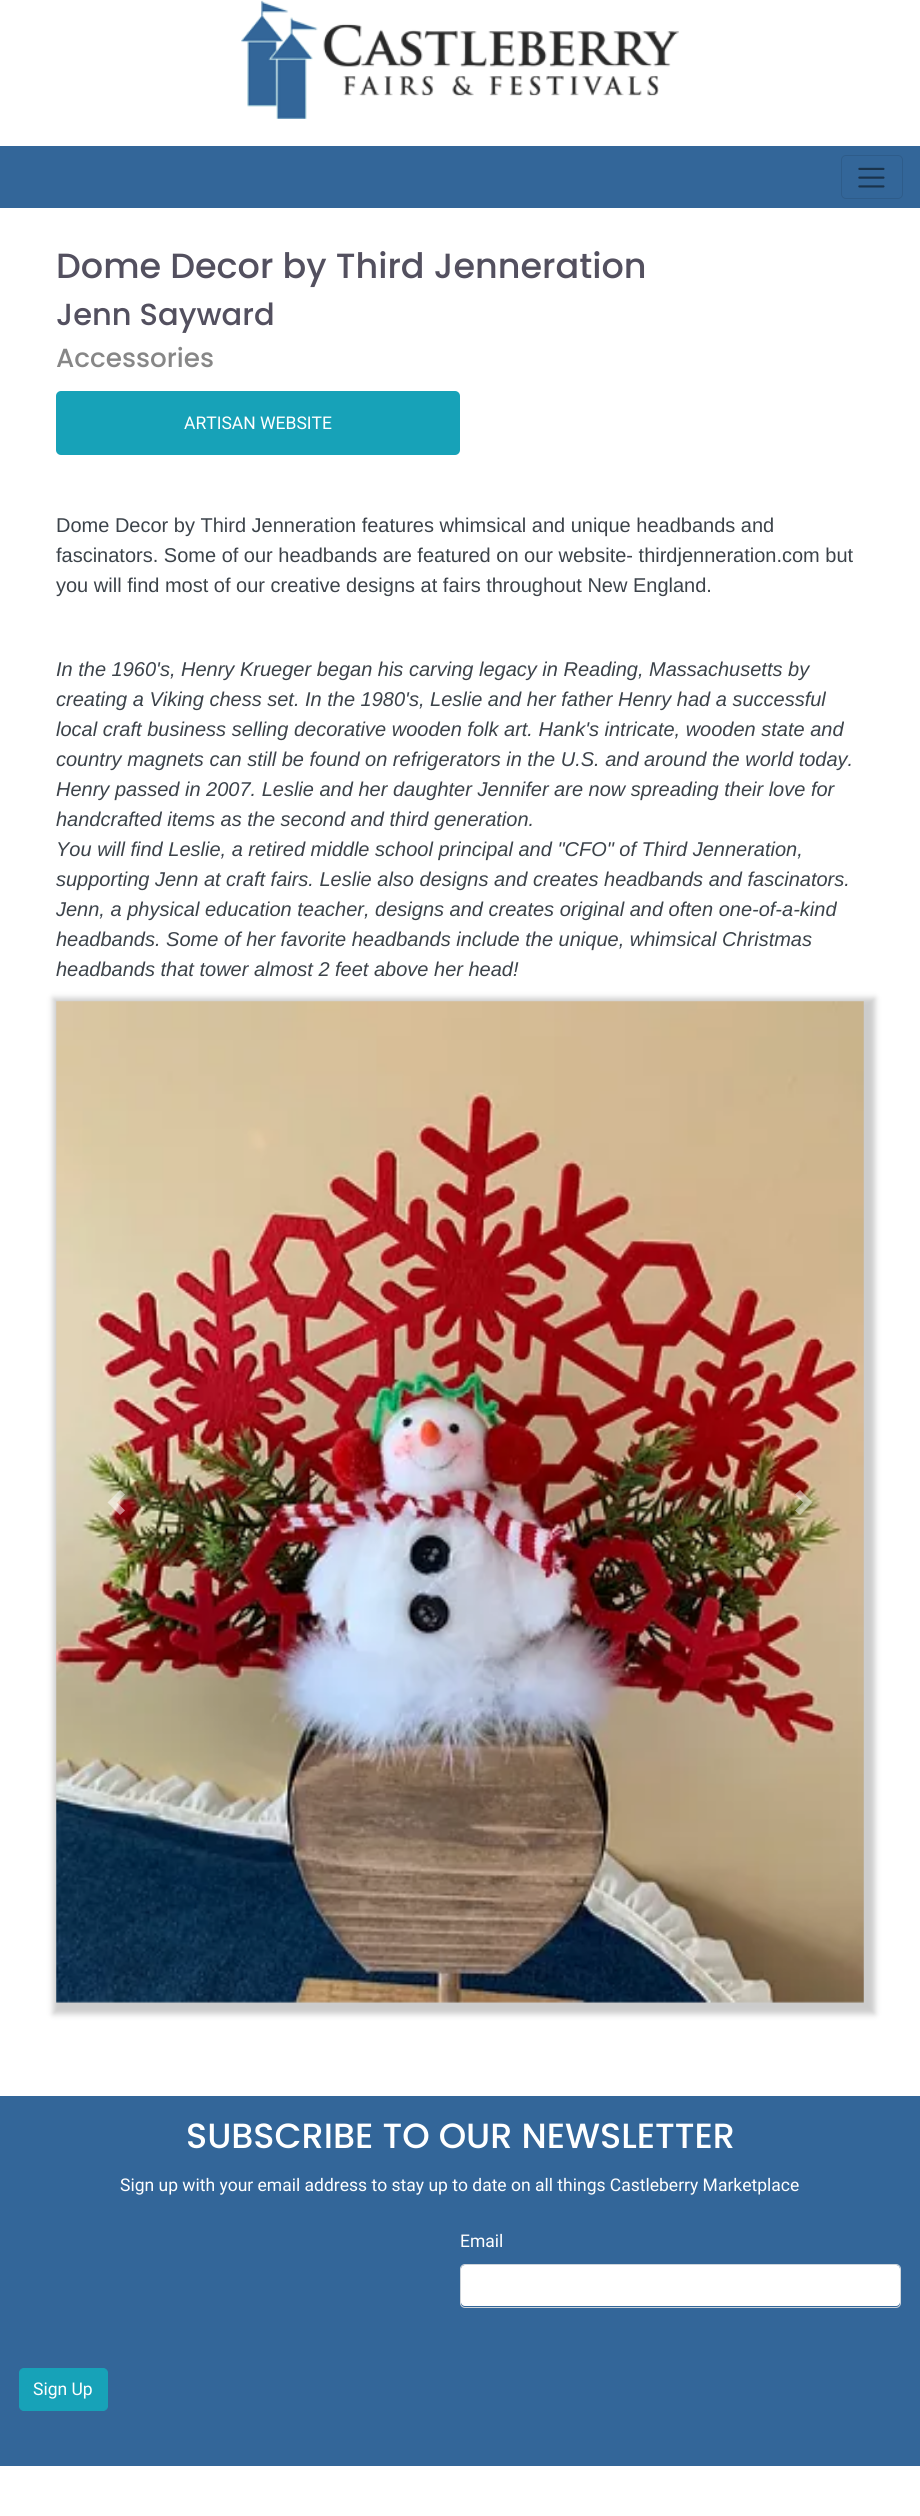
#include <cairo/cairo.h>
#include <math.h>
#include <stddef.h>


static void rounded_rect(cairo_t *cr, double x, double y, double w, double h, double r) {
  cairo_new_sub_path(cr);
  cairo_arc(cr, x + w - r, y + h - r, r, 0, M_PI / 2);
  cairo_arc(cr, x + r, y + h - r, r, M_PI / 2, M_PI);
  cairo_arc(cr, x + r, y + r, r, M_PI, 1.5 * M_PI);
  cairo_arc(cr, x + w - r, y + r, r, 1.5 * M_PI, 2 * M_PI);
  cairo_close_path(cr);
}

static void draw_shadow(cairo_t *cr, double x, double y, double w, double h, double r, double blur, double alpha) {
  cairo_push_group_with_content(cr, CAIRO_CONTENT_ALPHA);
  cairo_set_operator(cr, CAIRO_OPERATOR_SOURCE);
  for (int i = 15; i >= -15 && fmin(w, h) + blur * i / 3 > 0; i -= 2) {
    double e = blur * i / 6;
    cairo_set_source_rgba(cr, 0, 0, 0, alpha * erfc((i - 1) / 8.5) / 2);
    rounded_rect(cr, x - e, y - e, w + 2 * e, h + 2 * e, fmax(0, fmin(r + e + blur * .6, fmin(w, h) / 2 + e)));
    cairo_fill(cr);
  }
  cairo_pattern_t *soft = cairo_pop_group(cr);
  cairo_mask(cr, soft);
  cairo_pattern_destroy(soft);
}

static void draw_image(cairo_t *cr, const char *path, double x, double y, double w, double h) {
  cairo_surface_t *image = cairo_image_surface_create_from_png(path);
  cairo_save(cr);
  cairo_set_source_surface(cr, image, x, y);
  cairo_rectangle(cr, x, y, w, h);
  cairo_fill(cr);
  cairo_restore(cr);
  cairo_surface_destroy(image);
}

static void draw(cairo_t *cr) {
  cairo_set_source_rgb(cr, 1, 1, 1);
  cairo_paint(cr);
  draw_image(cr, "images/1.png", 241, 0, 438, 119);
  cairo_set_source_rgb(cr, 51 / 255.0, 102 / 255.0, 153 / 255.0);
  cairo_rectangle(cr, 0, 146, 920, 62);
  cairo_fill(cr);
  rounded_rect(cr, 841.5, 155.5, 61, 43, 4.5);
  cairo_set_source_rgb(cr, 46 / 255.0, 92 / 255.0, 138 / 255.0);
  cairo_set_line_width(cr, 1);
  cairo_stroke(cr);
  draw_image(cr, "images/2.png", 858, 167, 27, 21);
  cairo_set_source_rgb(cr, 23 / 255.0, 162 / 255.0, 184 / 255.0);
  rounded_rect(cr, 56, 391, 404, 64, 5);
  cairo_fill(cr);
  cairo_set_source_rgb(cr, 204 / 255.0, 204 / 255.0, 204 / 255.0);
  draw_shadow(cr, 53, 998, 822, 1016, 0, 3, 1);
  draw_image(cr, "images/3.png", 56, 1001, 808, 1002);
  cairo_set_source_rgba(cr, 1, 1, 1, 0.5);
  cairo_new_path(cr);
  cairo_move_to(cr, 120, 1490);
  cairo_line_to(cr, 107.5, 1502.5);
  cairo_line_to(cr, 120, 1515);
  cairo_line_to(cr, 125, 1510.5);
  cairo_line_to(cr, 117, 1502.5);
  cairo_line_to(cr, 125, 1494.5);
  cairo_close_path(cr);
  cairo_fill(cr);
  cairo_new_path(cr);
  cairo_move_to(cr, 800, 1490);
  cairo_line_to(cr, 795, 1494.5);
  cairo_line_to(cr, 803, 1502.5);
  cairo_line_to(cr, 795, 1510.5);
  cairo_line_to(cr, 800, 1515);
  cairo_line_to(cr, 812.5, 1502.5);
  cairo_close_path(cr);
  cairo_fill(cr);
  cairo_set_source_rgb(cr, 51 / 255.0, 102 / 255.0, 153 / 255.0);
  cairo_rectangle(cr, 0, 2096, 920, 370);
  cairo_fill(cr);
  cairo_set_source_rgb(cr, 1, 1, 1);
  rounded_rect(cr, 461, 2265, 439, 41, 4);
  cairo_fill(cr);
  rounded_rect(cr, 460.5, 2264.5, 440, 43, 4.5);
  cairo_set_source_rgb(cr, 206 / 255.0, 212 / 255.0, 218 / 255.0);
  cairo_stroke(cr);
  cairo_set_source_rgb(cr, 23 / 255.0, 162 / 255.0, 184 / 255.0);
  rounded_rect(cr, 19.5, 2368.5, 88, 42, 4.5);
  cairo_fill_preserve(cr);
  cairo_stroke(cr);
  cairo_select_font_face(cr, "Poppins Medium", CAIRO_FONT_SLANT_NORMAL, CAIRO_FONT_WEIGHT_NORMAL);
  cairo_set_font_size(cr, 35);
  cairo_set_source_rgb(cr, 83 / 255.0, 80 / 255.0, 95 / 255.0);
  cairo_move_to(cr, 56, 278);
  cairo_show_text(cr, "Dome Decor by Third Jenneration");
  cairo_set_font_size(cr, 30.5);
  cairo_move_to(cr, 56, 325);
  cairo_show_text(cr, "Jenn Sayward");
  cairo_set_font_size(cr, 26.25);
  cairo_set_source_rgb(cr, 135 / 255.0, 135 / 255.0, 135 / 255.0);
  cairo_move_to(cr, 56, 367);
  cairo_show_text(cr, "Accessories");
  cairo_select_font_face(cr, "Roboto", CAIRO_FONT_SLANT_NORMAL, CAIRO_FONT_WEIGHT_NORMAL);
  cairo_set_font_size(cr, 17.5);
  cairo_set_source_rgb(cr, 1, 1, 1);
  cairo_move_to(cr, 184, 429);
  cairo_show_text(cr, "ARTISAN WEBSITE");
  cairo_select_font_face(cr, "Liberation Sans", CAIRO_FONT_SLANT_NORMAL, CAIRO_FONT_WEIGHT_NORMAL);
  cairo_set_font_size(cr, 20);
  cairo_set_source_rgb(cr, 60 / 255.0, 67 / 255.0, 74 / 255.0);
  cairo_move_to(cr, 56, 532);
  cairo_show_text(cr, "Dome Decor by Third Jenneration features whimsical and unique headbands and");
  cairo_move_to(cr, 56, 562);
  cairo_show_text(cr, "fascinators. Some of our headbands are featured on our website- thirdjenneration.com but");
  cairo_move_to(cr, 56, 592);
  cairo_show_text(cr, "you will find most of our creative designs at fairs throughout New England.");
  cairo_select_font_face(cr, "Liberation Sans", CAIRO_FONT_SLANT_ITALIC, CAIRO_FONT_WEIGHT_NORMAL);
  cairo_move_to(cr, 56, 676);
  cairo_show_text(cr, "In the 1960's, Henry Krueger began his carving legacy in Reading, Massachusetts by");
  cairo_move_to(cr, 56, 706);
  cairo_show_text(cr, "creating a Viking chess set. In the 1980's, Leslie and her father Henry had a successful");
  cairo_move_to(cr, 56, 736);
  cairo_show_text(cr, "local craft business selling decorative wooden folk art. Hank's intricate, wooden state and");
  cairo_move_to(cr, 56, 766);
  cairo_show_text(cr, "country magnets can still be found on refrigerators in the U.S. and around the world today.");
  cairo_move_to(cr, 56, 796);
  cairo_show_text(cr, "Henry passed in 2007. Leslie and her daughter Jennifer are now spreading their love for");
  cairo_move_to(cr, 56, 826);
  cairo_show_text(cr, "handcrafted items as the second and third generation.");
  cairo_move_to(cr, 56, 856);
  cairo_show_text(cr, "You will find Leslie, a retired middle school principal and \"CFO\" of Third Jenneration,");
  cairo_move_to(cr, 56, 886);
  cairo_show_text(cr, "supporting Jenn at craft fairs. Leslie also designs and creates headbands and fascinators.");
  cairo_move_to(cr, 56, 916);
  cairo_show_text(cr, "Jenn, a physical education teacher, designs and creates original and often one-of-a-kind");
  cairo_move_to(cr, 56, 946);
  cairo_show_text(cr, "headbands. Some of her favorite headbands include the unique, whimsical Christmas");
  cairo_move_to(cr, 56, 976);
  cairo_show_text(cr, "headbands that tower almost 2 feet above her head!");
  cairo_select_font_face(cr, "Poppins Medium", CAIRO_FONT_SLANT_NORMAL, CAIRO_FONT_WEIGHT_NORMAL);
  cairo_set_font_size(cr, 35);
  cairo_set_source_rgb(cr, 1, 1, 1);
  cairo_move_to(cr, 186, 2148);
  cairo_show_text(cr, "SUBSCRIBE TO OUR NEWSLETTER");
  cairo_select_font_face(cr, "Roboto", CAIRO_FONT_SLANT_NORMAL, CAIRO_FONT_WEIGHT_NORMAL);
  cairo_set_font_size(cr, 17.5);
  cairo_move_to(cr, 120, 2191);
  cairo_show_text(cr, "Sign up with your email address to stay up to date on all things Castleberry Marketplace");
  cairo_move_to(cr, 460, 2247);
  cairo_show_text(cr, "Email");
  cairo_move_to(cr, 33, 2395);
  cairo_show_text(cr, "Sign Up");
}

int main(void) {
  cairo_surface_t *surface = cairo_image_surface_create(CAIRO_FORMAT_RGB24, 920, 2516);
  cairo_t *cr = cairo_create(surface);
  cairo_font_options_t *options = cairo_font_options_create();
  cairo_font_options_set_hint_metrics(options, CAIRO_HINT_METRICS_OFF);
  cairo_font_options_set_hint_style(options, CAIRO_HINT_STYLE_NONE);
  cairo_set_font_options(cr, options);
  cairo_set_miter_limit(cr, 4);
  draw(cr);
  cairo_surface_write_to_png(surface, "out.png");
  cairo_font_options_destroy(options);
  cairo_destroy(cr);
  cairo_surface_destroy(surface);
  return 0;
}
